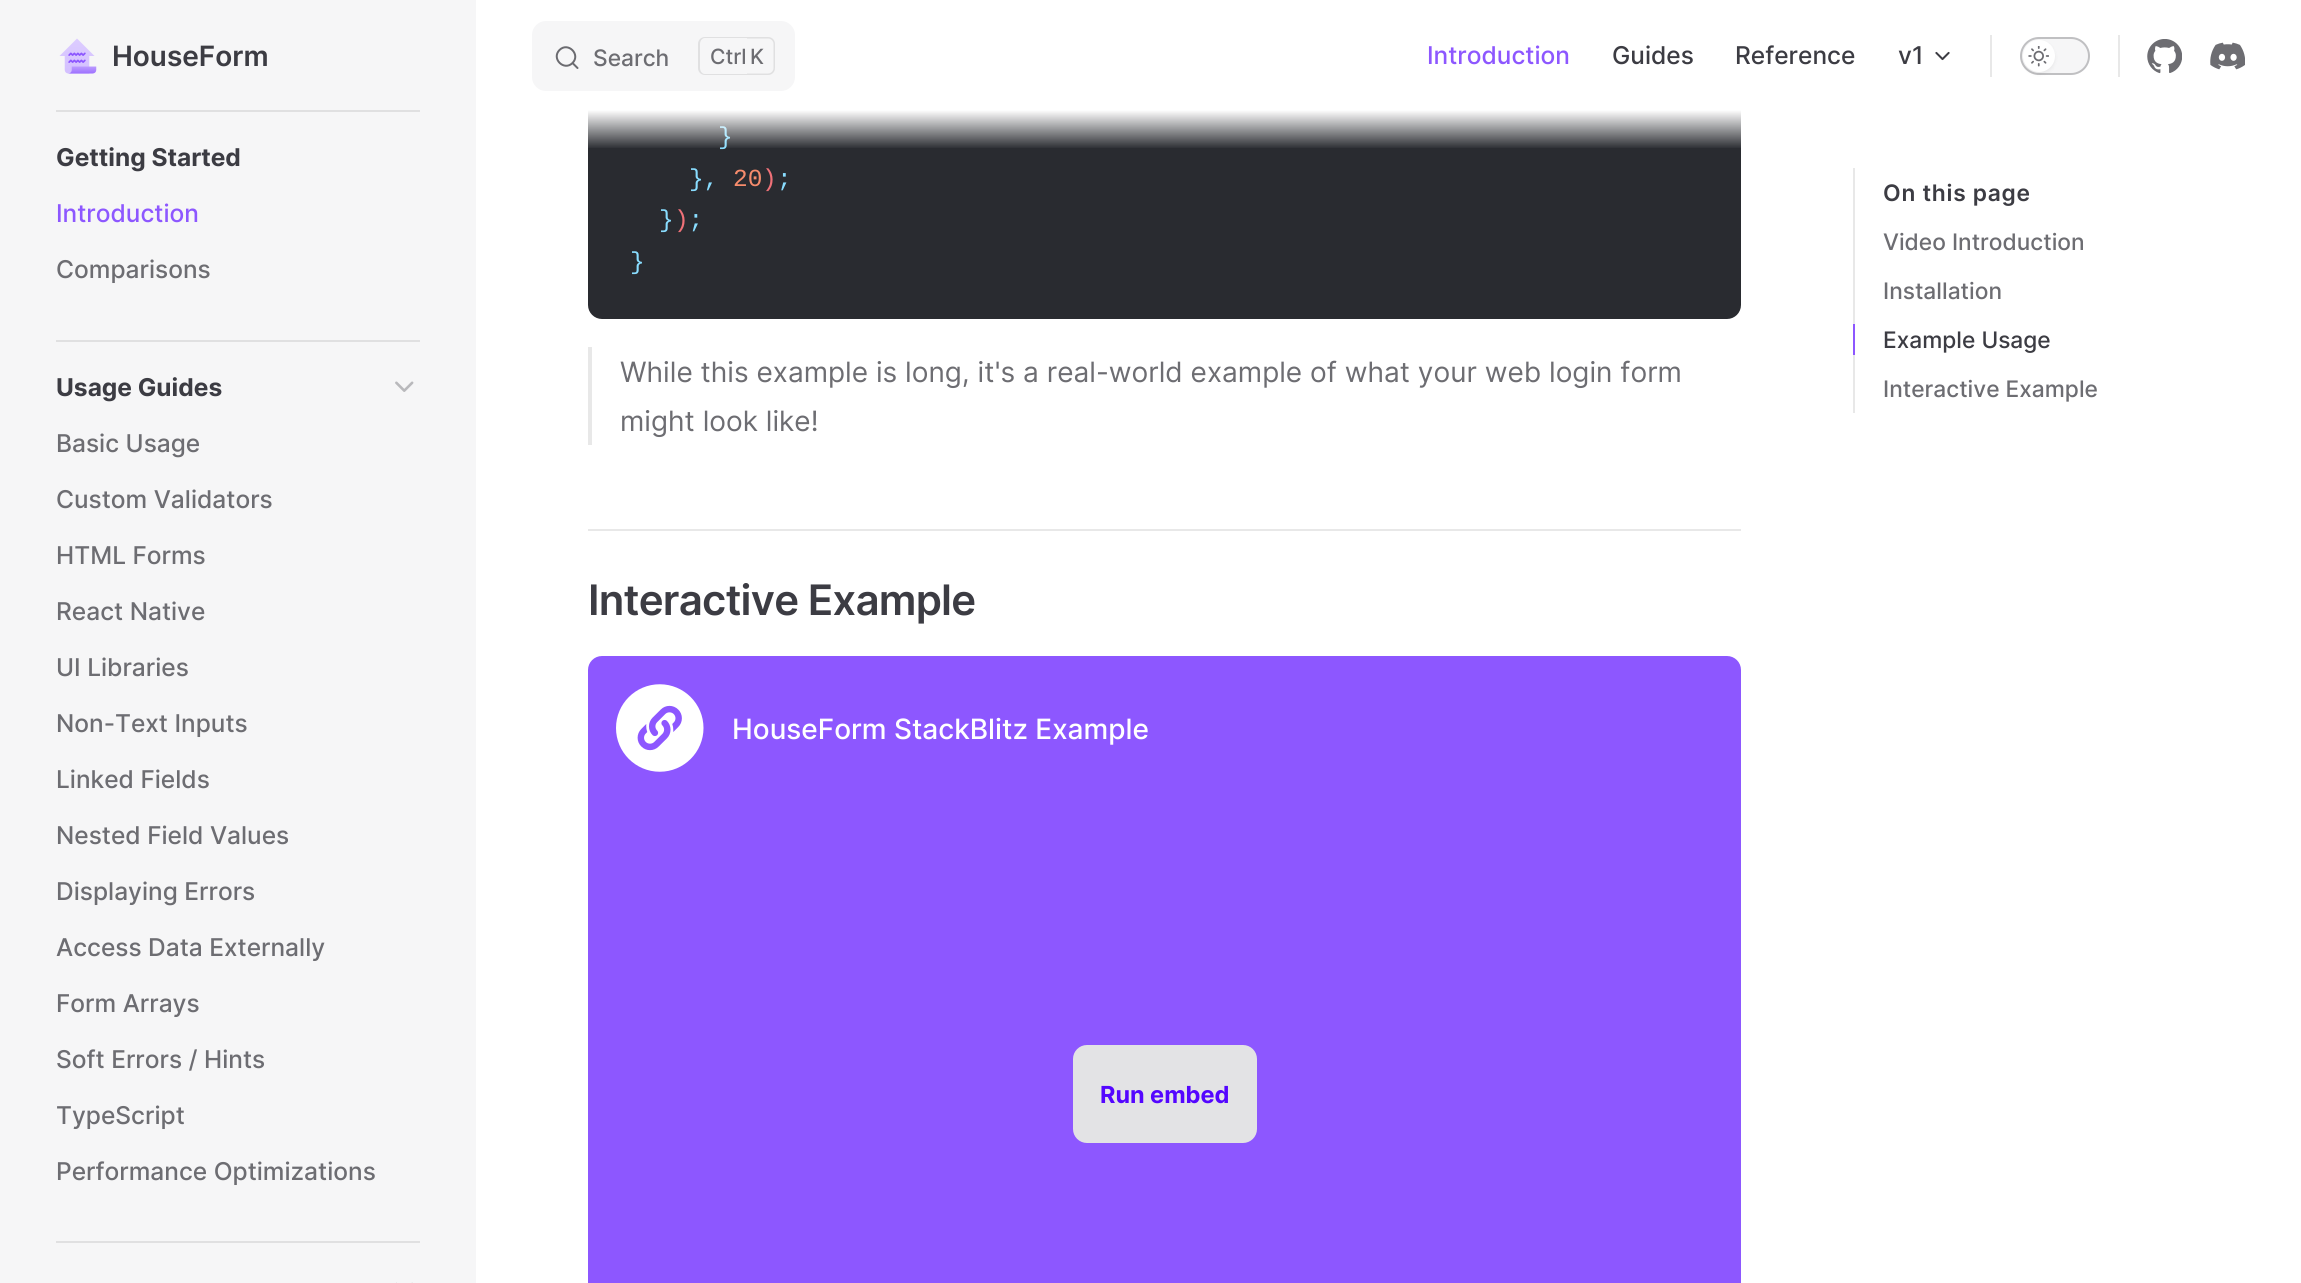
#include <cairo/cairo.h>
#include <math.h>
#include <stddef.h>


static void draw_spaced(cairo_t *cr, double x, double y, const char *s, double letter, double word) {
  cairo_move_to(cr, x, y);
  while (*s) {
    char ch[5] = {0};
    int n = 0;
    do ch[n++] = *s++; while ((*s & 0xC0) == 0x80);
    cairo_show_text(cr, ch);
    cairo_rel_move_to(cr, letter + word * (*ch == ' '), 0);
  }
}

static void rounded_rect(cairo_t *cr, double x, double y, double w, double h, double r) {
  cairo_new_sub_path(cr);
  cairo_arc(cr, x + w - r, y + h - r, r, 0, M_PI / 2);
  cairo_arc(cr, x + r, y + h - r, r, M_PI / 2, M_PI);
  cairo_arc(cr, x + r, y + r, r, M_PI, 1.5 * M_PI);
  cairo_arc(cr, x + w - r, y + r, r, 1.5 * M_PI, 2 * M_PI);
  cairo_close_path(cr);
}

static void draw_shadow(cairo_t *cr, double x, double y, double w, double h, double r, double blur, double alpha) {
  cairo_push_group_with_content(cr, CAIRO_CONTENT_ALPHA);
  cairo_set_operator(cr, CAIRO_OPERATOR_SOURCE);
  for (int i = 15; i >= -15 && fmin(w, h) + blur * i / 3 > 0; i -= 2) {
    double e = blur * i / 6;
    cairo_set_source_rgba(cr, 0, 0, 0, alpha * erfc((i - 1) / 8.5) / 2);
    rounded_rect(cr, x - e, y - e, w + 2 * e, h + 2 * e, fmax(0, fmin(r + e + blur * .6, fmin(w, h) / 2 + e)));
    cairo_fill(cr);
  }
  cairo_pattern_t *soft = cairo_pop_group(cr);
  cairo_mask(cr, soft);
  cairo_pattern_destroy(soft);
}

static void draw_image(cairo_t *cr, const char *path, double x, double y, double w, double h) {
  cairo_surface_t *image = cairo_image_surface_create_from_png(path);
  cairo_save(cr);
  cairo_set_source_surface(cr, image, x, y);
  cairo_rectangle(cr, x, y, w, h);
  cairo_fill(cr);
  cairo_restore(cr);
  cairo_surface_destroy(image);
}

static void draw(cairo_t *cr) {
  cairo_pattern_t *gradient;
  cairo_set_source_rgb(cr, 1, 1, 1);
  cairo_paint(cr);
  cairo_set_source_rgb(cr, 246 / 255.0, 246 / 255.0, 247 / 255.0);
  cairo_rectangle(cr, 0, 0, 476, 1283);
  cairo_fill(cr);
  cairo_set_source_rgb(cr, 224 / 255.0, 224 / 255.0, 225 / 255.0);
  cairo_rectangle(cr, 56, 110, 364, 2);
  cairo_fill(cr);
  draw_image(cr, "images/1.png", 59, 38, 38, 36);
  cairo_set_source_rgb(cr, 41 / 255.0, 43 / 255.0, 48 / 255.0);
  rounded_rect(cr, 588, -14, 1153, 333, 14);
  cairo_fill(cr);
  cairo_set_source_rgb(cr, 1, 1, 1);
  cairo_rectangle(cr, 588, 0, 1153, 110);
  cairo_fill(cr);
  cairo_set_source_rgb(cr, 246 / 255.0, 246 / 255.0, 247 / 255.0);
  rounded_rect(cr, 532, 21, 263, 70, 14);
  cairo_fill(cr);
  cairo_new_path(cr);
  cairo_move_to(cr, 572.5, 63);
  cairo_line_to(cr, 577.5, 68);
  cairo_line_to(cr, 572.5, 63);
  cairo_curve_to(cr, 564, 71.5, 551, 58.5, 559.5, 50);
  cairo_curve_to(cr, 568, 41.5, 581, 54.5, 572.5, 63);
  cairo_close_path(cr);
  cairo_set_source_rgb(cr, 107 / 255.0, 107 / 255.0, 112 / 255.0);
  cairo_set_line_cap(cr, CAIRO_LINE_CAP_ROUND);
  cairo_set_line_join(cr, CAIRO_LINE_JOIN_ROUND);
  cairo_stroke(cr);
  cairo_set_source_rgb(cr, 224 / 255.0, 224 / 255.0, 225 / 255.0);
  cairo_set_fill_rule(cr, CAIRO_FILL_RULE_EVEN_ODD);
  cairo_new_path(cr);
  cairo_move_to(cr, 705, 37);
  cairo_line_to(cr, 747, 37);
  cairo_line_to(cr, 747, 75);
  cairo_line_to(cr, 705, 75);
  cairo_curve_to(cr, 701, 75, 698, 72, 698, 68);
  cairo_line_to(cr, 698, 44);
  cairo_curve_to(cr, 698, 40, 701, 37, 705, 37);
  cairo_close_path(cr);
  cairo_move_to(cr, 705, 38);
  cairo_line_to(cr, 747, 38);
  cairo_line_to(cr, 747, 74);
  cairo_line_to(cr, 705, 74);
  cairo_curve_to(cr, 702, 74, 700, 71, 700, 68);
  cairo_line_to(cr, 700, 44);
  cairo_curve_to(cr, 700, 41, 702, 38, 705, 38);
  cairo_close_path(cr);
  cairo_fill(cr);
  cairo_new_path(cr);
  cairo_move_to(cr, 747, 37);
  cairo_line_to(cr, 768, 37);
  cairo_curve_to(cr, 772, 37, 775, 40, 775, 44);
  cairo_line_to(cr, 775, 68);
  cairo_curve_to(cr, 775, 72, 772, 75, 768, 75);
  cairo_line_to(cr, 747, 75);
  cairo_close_path(cr);
  cairo_move_to(cr, 747, 38.5);
  cairo_line_to(cr, 768, 38.5);
  cairo_curve_to(cr, 771, 38.5, 773.5, 41, 773.5, 44);
  cairo_line_to(cr, 773.5, 68);
  cairo_curve_to(cr, 773.5, 71, 771, 73.5, 768, 73.5);
  cairo_line_to(cr, 747, 73.5);
  cairo_close_path(cr);
  cairo_fill(cr);
  draw_image(cr, "images/2.png", 1935, 51, 15, 10);
  cairo_set_source_rgb(cr, 232 / 255.0, 232 / 255.0, 232 / 255.0);
  cairo_rectangle(cr, 1990, 35, 2, 42);
  cairo_fill(cr);
  cairo_set_source_rgb(cr, 246 / 255.0, 246 / 255.0, 247 / 255.0);
  rounded_rect(cr, 2020, 37, 70, 38, 19);
  cairo_fill(cr);
  rounded_rect(cr, 2021, 38, 68, 36, 18);
  cairo_set_source_rgba(cr, 60 / 255.0, 60 / 255.0, 67 / 255.0, 0.29);
  cairo_set_line_cap(cr, CAIRO_LINE_CAP_BUTT);
  cairo_set_line_join(cr, CAIRO_LINE_JOIN_MITER);
  cairo_stroke(cr);
  cairo_set_source_rgb(cr, 0, 0, 0);
  draw_shadow(cr, 2023, 42, 32, 32, 16, 2, 0.06);
  cairo_set_source_rgb(cr, 1, 1, 1);
  cairo_arc(cr, 2039, 56, 16, 0, 2 * M_PI);
  cairo_fill(cr);
  draw_image(cr, "images/3.png", 2028, 46, 21, 21);
  cairo_set_source_rgb(cr, 232 / 255.0, 232 / 255.0, 232 / 255.0);
  cairo_rectangle(cr, 2118, 35, 2, 42);
  cairo_fill(cr);
  draw_image(cr, "images/4.png", 2147, 39, 35, 35);
  draw_image(cr, "images/5.png", 2210, 42, 35, 28);
  cairo_set_source_rgb(cr, 224 / 255.0, 224 / 255.0, 225 / 255.0);
  cairo_rectangle(cr, 56, 340, 364, 2);
  cairo_fill(cr);
  draw_image(cr, "images/6.png", 395, 381, 19, 11);
  cairo_rectangle(cr, 56, 1241, 364, 2);
  cairo_fill(cr);
  draw_image(cr, "images/7.png", 396, 1282, 17, 1);
  cairo_set_source_rgb(cr, 232 / 255.0, 232 / 255.0, 232 / 255.0);
  cairo_rectangle(cr, 588, 347, 4, 98);
  cairo_fill(cr);
  cairo_rectangle(cr, 588, 529, 1153, 2);
  cairo_fill(cr);
  cairo_set_source_rgb(cr, 141 / 255.0, 87 / 255.0, 1);
  rounded_rect(cr, 588, 656, 1153, 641, 14);
  cairo_fill(cr);
  draw_image(cr, "images/8.png", 616, 684, 88, 88);
  cairo_set_source_rgb(cr, 227 / 255.0, 227 / 255.0, 229 / 255.0);
  rounded_rect(cr, 1073, 1045, 184, 98, 14);
  cairo_fill(cr);
  cairo_set_source_rgb(cr, 232 / 255.0, 232 / 255.0, 232 / 255.0);
  cairo_rectangle(cr, 1853, 168, 2, 245);
  cairo_fill(cr);
  cairo_set_source_rgb(cr, 141 / 255.0, 87 / 255.0, 1);
  cairo_rectangle(cr, 1853, 324, 2, 31);
  cairo_fill(cr);
  cairo_select_font_face(cr, "Inter SemiBold", CAIRO_FONT_SLANT_NORMAL, CAIRO_FONT_WEIGHT_NORMAL);
  cairo_set_font_size(cr, 28);
  cairo_set_source_rgb(cr, 60 / 255.0, 60 / 255.0, 67 / 255.0);
  cairo_move_to(cr, 112, 66);
  cairo_show_text(cr, "HouseForm");
  cairo_select_font_face(cr, "Inter Medium", CAIRO_FONT_SLANT_NORMAL, CAIRO_FONT_WEIGHT_NORMAL);
  cairo_set_font_size(cr, 22.75);
  cairo_set_source_rgb(cr, 109 / 255.0, 109 / 255.0, 114 / 255.0);
  cairo_move_to(cr, 593, 66);
  cairo_show_text(cr, "Search");
  cairo_set_font_size(cr, 21);
  cairo_move_to(cr, 710, 64);
  cairo_show_text(cr, "Ctrl");
  cairo_move_to(cr, 750, 64);
  cairo_show_text(cr, "K");
  cairo_set_font_size(cr, 24.5);
  cairo_set_source_rgb(cr, 141 / 255.0, 87 / 255.0, 1);
  cairo_move_to(cr, 1427, 64);
  cairo_show_text(cr, "Introduction");
  cairo_set_source_rgb(cr, 60 / 255.0, 60 / 255.0, 67 / 255.0);
  cairo_move_to(cr, 1612, 64);
  cairo_show_text(cr, "Guides");
  cairo_move_to(cr, 1735, 64);
  cairo_show_text(cr, "Reference");
  cairo_move_to(cr, 1898, 64);
  cairo_show_text(cr, "v1");
  cairo_select_font_face(cr, "Inter", CAIRO_FONT_SLANT_NORMAL, CAIRO_FONT_WEIGHT_BOLD);
  cairo_move_to(cr, 56, 166);
  cairo_show_text(cr, "Getting Started");
  cairo_select_font_face(cr, "Inter Medium", CAIRO_FONT_SLANT_NORMAL, CAIRO_FONT_WEIGHT_NORMAL);
  cairo_set_source_rgb(cr, 141 / 255.0, 87 / 255.0, 1);
  cairo_move_to(cr, 56, 222);
  cairo_show_text(cr, "Introduction");
  cairo_set_source_rgb(cr, 109 / 255.0, 109 / 255.0, 114 / 255.0);
  cairo_move_to(cr, 56, 278);
  cairo_show_text(cr, "Comparisons");
  cairo_select_font_face(cr, "Inter", CAIRO_FONT_SLANT_NORMAL, CAIRO_FONT_WEIGHT_BOLD);
  cairo_set_source_rgb(cr, 60 / 255.0, 60 / 255.0, 67 / 255.0);
  cairo_move_to(cr, 56, 396);
  cairo_show_text(cr, "Usage Guides");
  cairo_select_font_face(cr, "Inter Medium", CAIRO_FONT_SLANT_NORMAL, CAIRO_FONT_WEIGHT_NORMAL);
  cairo_set_source_rgb(cr, 109 / 255.0, 109 / 255.0, 114 / 255.0);
  cairo_move_to(cr, 56, 452);
  cairo_show_text(cr, "Basic Usage");
  cairo_move_to(cr, 56, 508);
  cairo_show_text(cr, "Custom Validators");
  cairo_move_to(cr, 56, 564);
  cairo_show_text(cr, "HTML Forms");
  cairo_move_to(cr, 56, 620);
  cairo_show_text(cr, "React Native");
  cairo_move_to(cr, 56, 676);
  cairo_show_text(cr, "UI Libraries");
  cairo_move_to(cr, 56, 732);
  cairo_show_text(cr, "Non-Text Inputs");
  cairo_move_to(cr, 56, 788);
  cairo_show_text(cr, "Linked Fields");
  cairo_move_to(cr, 56, 844);
  cairo_show_text(cr, "Nested Field Values");
  cairo_move_to(cr, 56, 900);
  cairo_show_text(cr, "Displaying Errors");
  cairo_move_to(cr, 56, 956);
  cairo_show_text(cr, "Access Data Externally");
  cairo_move_to(cr, 56, 1012);
  cairo_show_text(cr, "Form Arrays");
  cairo_move_to(cr, 56, 1068);
  cairo_show_text(cr, "Soft Errors / Hints");
  cairo_move_to(cr, 56, 1124);
  cairo_show_text(cr, "TypeScript");
  cairo_move_to(cr, 56, 1180);
  cairo_show_text(cr, "Performance Optimizations");
  cairo_select_font_face(cr, "Liberation Mono", CAIRO_FONT_SLANT_NORMAL, CAIRO_FONT_WEIGHT_NORMAL);
  cairo_set_source_rgb(cr, 137 / 255.0, 221 / 255.0, 1);
  cairo_move_to(cr, 718, 144);
  cairo_show_text(cr, "}");
  gradient = cairo_pattern_create_linear(1389, 110, 1389, 166);
  cairo_pattern_add_color_stop_rgba(gradient, 0, 1, 1, 1, 1);
  cairo_pattern_add_color_stop_rgba(gradient, 0.7, 1, 1, 1, 0);
  cairo_set_source(cr, gradient);
  cairo_pattern_destroy(gradient);
  cairo_rectangle(cr, 588, 110, 1153, 38);
  cairo_fill(cr);
  cairo_set_source_rgb(cr, 137 / 255.0, 221 / 255.0, 1);
  cairo_move_to(cr, 689, 186);
  cairo_show_text(cr, "},");
  cairo_set_source_rgb(cr, 247 / 255.0, 140 / 255.0, 108 / 255.0);
  cairo_move_to(cr, 733, 186);
  cairo_show_text(cr, "20");
  cairo_set_source_rgb(cr, 240 / 255.0, 113 / 255.0, 120 / 255.0);
  cairo_move_to(cr, 762, 186);
  cairo_show_text(cr, ")");
  cairo_set_source_rgb(cr, 137 / 255.0, 221 / 255.0, 1);
  cairo_move_to(cr, 777, 186);
  cairo_show_text(cr, ";");
  cairo_move_to(cr, 659, 227);
  cairo_show_text(cr, "} ;");
  cairo_set_source_rgb(cr, 240 / 255.0, 113 / 255.0, 120 / 255.0);
  cairo_move_to(cr, 674, 227);
  cairo_show_text(cr, ")");
  cairo_set_source_rgb(cr, 137 / 255.0, 221 / 255.0, 1);
  cairo_move_to(cr, 630, 269);
  cairo_show_text(cr, "}");
  cairo_select_font_face(cr, "Inter", CAIRO_FONT_SLANT_NORMAL, CAIRO_FONT_WEIGHT_NORMAL);
  cairo_set_font_size(cr, 28);
  cairo_set_source_rgb(cr, 109 / 255.0, 109 / 255.0, 114 / 255.0);
  cairo_move_to(cr, 620, 382);
  cairo_show_text(cr, "While this example is long, it's a real-world example of what your web login form");
  cairo_move_to(cr, 620, 431);
  cairo_show_text(cr, "might look like!");
  cairo_select_font_face(cr, "Inter SemiBold", CAIRO_FONT_SLANT_NORMAL, CAIRO_FONT_WEIGHT_NORMAL);
  cairo_set_font_size(cr, 42);
  cairo_set_source_rgb(cr, 60 / 255.0, 60 / 255.0, 67 / 255.0);
  draw_spaced(cr, 588, 615, "Interactive Example", -0.8, 0);
  cairo_select_font_face(cr, "Inter Medium", CAIRO_FONT_SLANT_NORMAL, CAIRO_FONT_WEIGHT_NORMAL);
  cairo_set_font_size(cr, 28);
  cairo_set_source_rgb(cr, 1, 1, 1);
  cairo_move_to(cr, 732, 739);
  cairo_show_text(cr, "HouseForm StackBlitz Example");
  cairo_select_font_face(cr, "Inter", CAIRO_FONT_SLANT_NORMAL, CAIRO_FONT_WEIGHT_BOLD);
  cairo_set_font_size(cr, 23.5);
  cairo_set_source_rgb(cr, 84 / 255.0, 6 / 255.0, 1);
  cairo_move_to(cr, 1100, 1103);
  cairo_show_text(cr, "Run embed");
  cairo_select_font_face(cr, "Inter SemiBold", CAIRO_FONT_SLANT_NORMAL, CAIRO_FONT_WEIGHT_NORMAL);
  cairo_set_font_size(cr, 22.75);
  cairo_set_source_rgb(cr, 60 / 255.0, 60 / 255.0, 67 / 255.0);
  draw_spaced(cr, 1883, 201, "On this page", 0.75, 0);
  cairo_select_font_face(cr, "Inter Medium", CAIRO_FONT_SLANT_NORMAL, CAIRO_FONT_WEIGHT_NORMAL);
  cairo_set_source_rgb(cr, 109 / 255.0, 109 / 255.0, 114 / 255.0);
  cairo_move_to(cr, 1883, 250);
  cairo_show_text(cr, "Video Introduction");
  cairo_move_to(cr, 1883, 299);
  cairo_show_text(cr, "Installation");
  cairo_set_source_rgb(cr, 60 / 255.0, 60 / 255.0, 67 / 255.0);
  cairo_move_to(cr, 1883, 348);
  cairo_show_text(cr, "Example Usage");
  cairo_set_source_rgb(cr, 109 / 255.0, 109 / 255.0, 114 / 255.0);
  cairo_move_to(cr, 1883, 397);
  cairo_show_text(cr, "Interactive Example");
}

int main(void) {
  cairo_surface_t *surface = cairo_image_surface_create(CAIRO_FORMAT_RGB24, 2301, 1283);
  cairo_t *cr = cairo_create(surface);
  cairo_font_options_t *options = cairo_font_options_create();
  cairo_font_options_set_hint_metrics(options, CAIRO_HINT_METRICS_OFF);
  cairo_font_options_set_hint_style(options, CAIRO_HINT_STYLE_NONE);
  cairo_set_font_options(cr, options);
  cairo_set_miter_limit(cr, 4);
  draw(cr);
  cairo_surface_write_to_png(surface, "out.png");
  cairo_font_options_destroy(options);
  cairo_destroy(cr);
  cairo_surface_destroy(surface);
  return 0;
}
